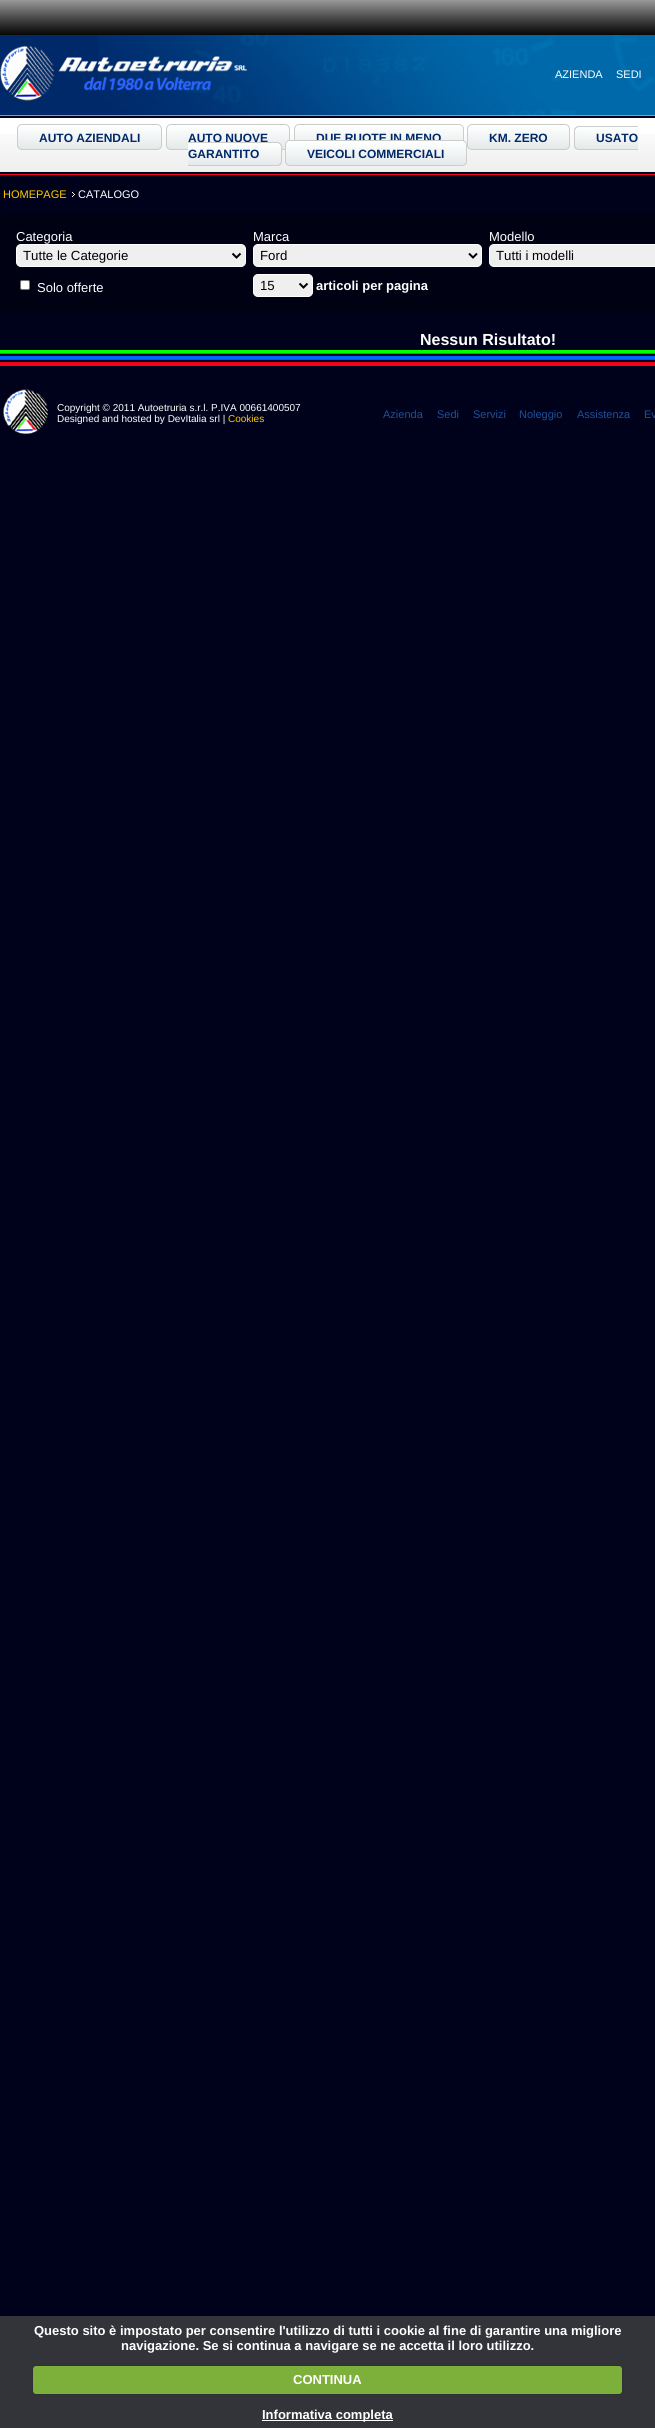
#include <cairo/cairo.h>
#include <math.h>
#include <stddef.h>


static void rounded_rect(cairo_t *cr, double x, double y, double w, double h, double r) {
  cairo_new_sub_path(cr);
  cairo_arc(cr, x + w - r, y + h - r, r, 0, M_PI / 2);
  cairo_arc(cr, x + r, y + h - r, r, M_PI / 2, M_PI);
  cairo_arc(cr, x + r, y + r, r, M_PI, 1.5 * M_PI);
  cairo_arc(cr, x + w - r, y + r, r, 1.5 * M_PI, 2 * M_PI);
  cairo_close_path(cr);
}

static void draw_shadow(cairo_t *cr, double x, double y, double w, double h, double r, double blur, double alpha) {
  cairo_push_group_with_content(cr, CAIRO_CONTENT_ALPHA);
  cairo_set_operator(cr, CAIRO_OPERATOR_SOURCE);
  for (int i = 15; i >= -15 && fmin(w, h) + blur * i / 3 > 0; i -= 2) {
    double e = blur * i / 6;
    cairo_set_source_rgba(cr, 0, 0, 0, alpha * erfc((i - 1) / 8.5) / 2);
    rounded_rect(cr, x - e, y - e, w + 2 * e, h + 2 * e, fmax(0, fmin(r + e + blur * .6, fmin(w, h) / 2 + e)));
    cairo_fill(cr);
  }
  cairo_pattern_t *soft = cairo_pop_group(cr);
  cairo_mask(cr, soft);
  cairo_pattern_destroy(soft);
}

static void draw_image(cairo_t *cr, const char *path, double x, double y, double w, double h) {
  cairo_surface_t *image = cairo_image_surface_create_from_png(path);
  cairo_save(cr);
  cairo_set_source_surface(cr, image, x, y);
  cairo_rectangle(cr, x, y, w, h);
  cairo_fill(cr);
  cairo_restore(cr);
  cairo_surface_destroy(image);
}

static void draw(cairo_t *cr) {
  cairo_pattern_t *gradient;
  cairo_set_source_rgb(cr, 0, 2 / 255.0, 27 / 255.0);
  cairo_paint(cr);
  cairo_set_source_rgb(cr, 244 / 255.0, 5 / 255.0, 38 / 255.0);
  cairo_rectangle(cr, 0, 174, 655, 1);
  cairo_fill(cr);
  draw_image(cr, "images/1.png", 0, 0, 655, 35);
  cairo_set_source_rgb(cr, 0, 41 / 255.0, 106 / 255.0);
  cairo_rectangle(cr, 0, 35, 98, 80);
  cairo_fill(cr);
  draw_image(cr, "images/2.png", 98, 35, 557, 80);
  cairo_set_source_rgb(cr, 0, 1, 0);
  cairo_rectangle(cr, 0, 115, 655, 1);
  cairo_fill(cr);
  draw_image(cr, "images/3.png", 0, 46, 247, 55);
  cairo_set_source_rgb(cr, 1, 1, 1);
  cairo_rectangle(cr, 0, 118, 655, 16);
  cairo_fill(cr);
  draw_image(cr, "images/4.png", 0, 134, 655, 38);
  cairo_save(cr);
  rounded_rect(cr, 17, 124, 145, 26, 5);
  cairo_clip(cr);
  gradient = cairo_pattern_create_linear(18, 125, 18, 149);
  cairo_pattern_add_color_stop_rgba(gradient, 0, 1, 1, 1, 1);
  cairo_pattern_add_color_stop_rgba(gradient, 1, 229 / 255.0, 233 / 255.0, 234 / 255.0, 1);
  cairo_set_source(cr, gradient);
  cairo_pattern_destroy(gradient);
  cairo_rectangle(cr, 17, 125, 145, 24);
  cairo_fill(cr);
  cairo_restore(cr);
  rounded_rect(cr, 17.5, 124.5, 144, 25, 4.5);
  cairo_set_source_rgb(cr, 204 / 255.0, 204 / 255.0, 204 / 255.0);
  cairo_set_line_width(cr, 1);
  cairo_stroke(cr);
  cairo_save(cr);
  rounded_rect(cr, 166, 124, 124, 26, 5);
  cairo_clip(cr);
  gradient = cairo_pattern_create_linear(167, 125, 167, 149);
  cairo_pattern_add_color_stop_rgba(gradient, 0, 1, 1, 1, 1);
  cairo_pattern_add_color_stop_rgba(gradient, 1, 229 / 255.0, 233 / 255.0, 234 / 255.0, 1);
  cairo_set_source(cr, gradient);
  cairo_pattern_destroy(gradient);
  cairo_rectangle(cr, 166, 125, 124, 24);
  cairo_fill(cr);
  cairo_restore(cr);
  rounded_rect(cr, 166.5, 124.5, 123, 25, 4.5);
  cairo_stroke(cr);
  cairo_save(cr);
  rounded_rect(cr, 294, 124, 170, 26, 5);
  cairo_clip(cr);
  gradient = cairo_pattern_create_linear(295, 125, 295, 149);
  cairo_pattern_add_color_stop_rgba(gradient, 0, 1, 1, 1, 1);
  cairo_pattern_add_color_stop_rgba(gradient, 1, 229 / 255.0, 233 / 255.0, 234 / 255.0, 1);
  cairo_set_source(cr, gradient);
  cairo_pattern_destroy(gradient);
  cairo_rectangle(cr, 294, 125, 170, 16);
  cairo_fill(cr);
  cairo_restore(cr);
  rounded_rect(cr, 294.5, 124.5, 169, 25, 4.5);
  cairo_stroke(cr);
  cairo_save(cr);
  rounded_rect(cr, 467, 124, 103, 26, 5);
  cairo_clip(cr);
  gradient = cairo_pattern_create_linear(468, 125, 468, 149);
  cairo_pattern_add_color_stop_rgba(gradient, 0, 1, 1, 1, 1);
  cairo_pattern_add_color_stop_rgba(gradient, 1, 229 / 255.0, 233 / 255.0, 234 / 255.0, 1);
  cairo_set_source(cr, gradient);
  cairo_pattern_destroy(gradient);
  cairo_rectangle(cr, 467, 125, 103, 24);
  cairo_fill(cr);
  cairo_restore(cr);
  rounded_rect(cr, 467.5, 124.5, 102, 25, 4.5);
  cairo_stroke(cr);
  cairo_save(cr);
  cairo_new_path(cr);
  cairo_move_to(cr, 579, 126);
  cairo_line_to(cr, 638, 126);
  cairo_line_to(cr, 638, 150);
  cairo_line_to(cr, 579, 150);
  cairo_curve_to(cr, 576, 150, 574, 148, 574, 145);
  cairo_line_to(cr, 574, 131);
  cairo_curve_to(cr, 574, 128, 576, 126, 579, 126);
  cairo_close_path(cr);
  cairo_clip(cr);
  gradient = cairo_pattern_create_linear(575, 127, 575, 149);
  cairo_pattern_add_color_stop_rgba(gradient, 0, 1, 1, 1, 1);
  cairo_pattern_add_color_stop_rgba(gradient, 1, 229 / 255.0, 233 / 255.0, 234 / 255.0, 1);
  cairo_set_source(cr, gradient);
  cairo_pattern_destroy(gradient);
  cairo_rectangle(cr, 574, 127, 64, 22);
  cairo_fill(cr);
  cairo_restore(cr);
  cairo_set_fill_rule(cr, CAIRO_FILL_RULE_EVEN_ODD);
  cairo_new_path(cr);
  cairo_move_to(cr, 579, 126);
  cairo_line_to(cr, 638, 126);
  cairo_line_to(cr, 638, 150);
  cairo_line_to(cr, 579, 150);
  cairo_curve_to(cr, 576, 150, 574, 148, 574, 145);
  cairo_line_to(cr, 574, 131);
  cairo_curve_to(cr, 574, 128, 576, 126, 579, 126);
  cairo_close_path(cr);
  cairo_move_to(cr, 579, 127);
  cairo_line_to(cr, 638, 127);
  cairo_line_to(cr, 638, 149);
  cairo_line_to(cr, 579, 149);
  cairo_curve_to(cr, 577, 149, 575, 147, 575, 145);
  cairo_line_to(cr, 575, 131);
  cairo_curve_to(cr, 575, 129, 577, 127, 579, 127);
  cairo_close_path(cr);
  cairo_fill(cr);
  cairo_save(cr);
  cairo_set_fill_rule(cr, CAIRO_FILL_RULE_WINDING);
  cairo_new_path(cr);
  cairo_move_to(cr, 188, 142);
  cairo_line_to(cr, 277, 142);
  cairo_curve_to(cr, 280, 142, 282, 144, 282, 147);
  cairo_line_to(cr, 282, 161);
  cairo_curve_to(cr, 282, 164, 280, 166, 277, 166);
  cairo_line_to(cr, 188, 166);
  cairo_close_path(cr);
  cairo_clip(cr);
  gradient = cairo_pattern_create_linear(188, 143, 188, 165);
  cairo_pattern_add_color_stop_rgba(gradient, 0, 1, 1, 1, 1);
  cairo_pattern_add_color_stop_rgba(gradient, 1, 229 / 255.0, 233 / 255.0, 234 / 255.0, 1);
  cairo_set_source(cr, gradient);
  cairo_pattern_destroy(gradient);
  cairo_rectangle(cr, 188, 143, 94, 22);
  cairo_fill(cr);
  cairo_restore(cr);
  draw_image(cr, "images/5.png", 72, 192, 3, 5);
  draw_image(cr, "images/6.png", 0, 213, 10, 10);
  cairo_set_source_rgb(cr, 0, 1 / 255.0, 19 / 255.0);
  cairo_rectangle(cr, 10, 213, 645, 10);
  cairo_fill(cr);
  cairo_rectangle(cr, 0, 223, 655, 90);
  cairo_fill(cr);
  cairo_set_source_rgb(cr, 239 / 255.0, 239 / 255.0, 239 / 255.0);
  rounded_rect(cr, 16.5, 244.5, 229, 22, 4.5);
  cairo_fill_preserve(cr);
  cairo_set_source_rgb(cr, 1, 1, 1);
  cairo_stroke(cr);
  cairo_new_path(cr);
  cairo_move_to(cr, 232.5, 253.5);
  cairo_line_to(cr, 236.5, 257.5);
  cairo_line_to(cr, 240.5, 253.5);
  cairo_set_source_rgb(cr, 0, 0, 0);
  cairo_set_line_width(cr, 2);
  cairo_stroke(cr);
  cairo_set_source_rgb(cr, 239 / 255.0, 239 / 255.0, 239 / 255.0);
  rounded_rect(cr, 253.5, 244.5, 228, 22, 4.5);
  cairo_fill_preserve(cr);
  cairo_set_source_rgb(cr, 1, 1, 1);
  cairo_set_line_width(cr, 1);
  cairo_stroke(cr);
  cairo_new_path(cr);
  cairo_move_to(cr, 469, 253.5);
  cairo_line_to(cr, 473, 257.5);
  cairo_line_to(cr, 477, 253.5);
  cairo_set_source_rgb(cr, 0, 0, 0);
  cairo_set_line_width(cr, 2);
  cairo_stroke(cr);
  cairo_set_source_rgb(cr, 239 / 255.0, 239 / 255.0, 239 / 255.0);
  rounded_rect(cr, 489.5, 244.5, 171, 22, 4.5);
  cairo_fill_preserve(cr);
  cairo_set_source_rgb(cr, 1, 1, 1);
  cairo_set_line_width(cr, 1);
  cairo_stroke(cr);
  rounded_rect(cr, 20.5, 280.5, 9, 9, 1.5);
  cairo_fill_preserve(cr);
  cairo_set_source_rgb(cr, 118 / 255.0, 118 / 255.0, 118 / 255.0);
  cairo_stroke(cr);
  cairo_set_source_rgb(cr, 239 / 255.0, 239 / 255.0, 239 / 255.0);
  rounded_rect(cr, 253.5, 274.5, 59, 22, 4.5);
  cairo_fill_preserve(cr);
  cairo_set_source_rgb(cr, 1, 1, 1);
  cairo_stroke(cr);
  cairo_new_path(cr);
  cairo_move_to(cr, 299.5, 283.5);
  cairo_line_to(cr, 303.5, 287.5);
  cairo_line_to(cr, 307.5, 283.5);
  cairo_set_source_rgb(cr, 0, 0, 0);
  cairo_set_line_width(cr, 2);
  cairo_stroke(cr);
  draw_image(cr, "images/7.png", 0, 350, 655, 16);
  draw_image(cr, "images/8.png", 3, 389, 45, 45);
  cairo_set_source_rgb(cr, 51 / 255.0, 52 / 255.0, 58 / 255.0);
  cairo_rectangle(cr, 0, 2316, 655, 112);
  cairo_fill(cr);
  cairo_set_source_rgb(cr, 0, 0, 0);
  draw_shadow(cr, 33, 2366, 589, 28, 3, 1, 0.25);
  cairo_set_source_rgb(cr, 125 / 255.0, 175 / 255.0, 59 / 255.0);
  rounded_rect(cr, 33, 2366, 589, 28, 3);
  cairo_fill(cr);
  cairo_set_source_rgb(cr, 1, 1, 1);
  cairo_rectangle(cr, 262, 2420, 131, 1);
  cairo_fill(cr);
  cairo_select_font_face(cr, "Liberation Sans", CAIRO_FONT_SLANT_NORMAL, CAIRO_FONT_WEIGHT_NORMAL);
  cairo_set_font_size(cr, 11);
  cairo_move_to(cr, 555, 78);
  cairo_show_text(cr, "AZIENDA");
  cairo_move_to(cr, 616, 78);
  cairo_show_text(cr, "SEDI");
  cairo_select_font_face(cr, "Liberation Sans", CAIRO_FONT_SLANT_NORMAL, CAIRO_FONT_WEIGHT_BOLD);
  cairo_set_font_size(cr, 12);
  cairo_set_source_rgb(cr, 0, 41 / 255.0, 106 / 255.0);
  cairo_move_to(cr, 39, 142);
  cairo_show_text(cr, "AUTO AZIENDALI");
  cairo_move_to(cr, 188, 142);
  cairo_show_text(cr, "AUTO NUOVE");
  cairo_move_to(cr, 316, 142);
  cairo_show_text(cr, "DUE RUOTE IN MENO");
  cairo_move_to(cr, 489, 142);
  cairo_show_text(cr, "KM. ZERO");
  cairo_move_to(cr, 596, 142);
  cairo_show_text(cr, "USATO");
  cairo_set_source_rgb(cr, 204 / 255.0, 204 / 255.0, 204 / 255.0);
  cairo_new_path(cr);
  cairo_move_to(cr, 188, 142);
  cairo_line_to(cr, 277, 142);
  cairo_curve_to(cr, 280, 142, 282, 144, 282, 147);
  cairo_line_to(cr, 282, 161);
  cairo_curve_to(cr, 282, 164, 280, 166, 277, 166);
  cairo_line_to(cr, 188, 166);
  cairo_close_path(cr);
  cairo_move_to(cr, 188, 143);
  cairo_line_to(cr, 277, 143);
  cairo_curve_to(cr, 279, 143, 281, 145, 281, 147);
  cairo_line_to(cr, 281, 161);
  cairo_curve_to(cr, 281, 163, 279, 165, 277, 165);
  cairo_line_to(cr, 188, 165);
  cairo_close_path(cr);
  cairo_fill(cr);
  cairo_set_source_rgb(cr, 0, 41 / 255.0, 106 / 255.0);
  cairo_move_to(cr, 188, 158);
  cairo_show_text(cr, "GARANTITO");
  cairo_save(cr);
  cairo_set_fill_rule(cr, CAIRO_FILL_RULE_WINDING);
  rounded_rect(cr, 285, 140, 182, 26, 5);
  cairo_clip(cr);
  gradient = cairo_pattern_create_linear(286, 141, 286, 165);
  cairo_pattern_add_color_stop_rgba(gradient, 0, 1, 1, 1, 1);
  cairo_pattern_add_color_stop_rgba(gradient, 1, 229 / 255.0, 233 / 255.0, 234 / 255.0, 1);
  cairo_set_source(cr, gradient);
  cairo_pattern_destroy(gradient);
  cairo_rectangle(cr, 285, 141, 182, 24);
  cairo_fill(cr);
  cairo_restore(cr);
  rounded_rect(cr, 285.5, 140.5, 181, 25, 4.5);
  cairo_set_source_rgb(cr, 204 / 255.0, 204 / 255.0, 204 / 255.0);
  cairo_set_line_width(cr, 1);
  cairo_stroke(cr);
  cairo_set_source_rgb(cr, 0, 41 / 255.0, 106 / 255.0);
  cairo_move_to(cr, 307, 158);
  cairo_show_text(cr, "VEICOLI COMMERCIALI");
  cairo_select_font_face(cr, "Liberation Sans", CAIRO_FONT_SLANT_NORMAL, CAIRO_FONT_WEIGHT_NORMAL);
  cairo_set_font_size(cr, 11);
  cairo_set_source_rgb(cr, 1, 204 / 255.0, 0);
  cairo_move_to(cr, 3, 198);
  cairo_show_text(cr, "HOMEPAGE");
  cairo_set_source_rgb(cr, 1, 1, 1);
  cairo_move_to(cr, 78, 198);
  cairo_show_text(cr, "CATALOGO");
  cairo_set_font_size(cr, 13);
  cairo_move_to(cr, 16, 241);
  cairo_show_text(cr, "Categoria");
  cairo_set_font_size(cr, 13.25);
  cairo_set_source_rgb(cr, 0, 0, 0);
  cairo_move_to(cr, 23, 260);
  cairo_show_text(cr, "Tutte le Categorie");
  cairo_set_font_size(cr, 13);
  cairo_set_source_rgb(cr, 1, 1, 1);
  cairo_move_to(cr, 253, 241);
  cairo_show_text(cr, "Marca");
  cairo_set_font_size(cr, 13.25);
  cairo_set_source_rgb(cr, 0, 0, 0);
  cairo_move_to(cr, 260, 260);
  cairo_show_text(cr, "Ford");
  cairo_set_font_size(cr, 13);
  cairo_set_source_rgb(cr, 1, 1, 1);
  cairo_move_to(cr, 489, 241);
  cairo_show_text(cr, "Modello");
  cairo_set_font_size(cr, 13.25);
  cairo_set_source_rgb(cr, 0, 0, 0);
  cairo_move_to(cr, 496, 260);
  cairo_show_text(cr, "Tutti i modelli");
  cairo_set_font_size(cr, 13);
  cairo_set_source_rgb(cr, 1, 1, 1);
  cairo_move_to(cr, 37, 292);
  cairo_show_text(cr, "Solo offerte");
  cairo_set_font_size(cr, 13.25);
  cairo_set_source_rgb(cr, 0, 0, 0);
  cairo_move_to(cr, 260, 290);
  cairo_show_text(cr, "15");
  cairo_select_font_face(cr, "Liberation Sans", CAIRO_FONT_SLANT_NORMAL, CAIRO_FONT_WEIGHT_BOLD);
  cairo_set_font_size(cr, 13);
  cairo_set_source_rgb(cr, 1, 1, 1);
  cairo_move_to(cr, 316, 290);
  cairo_show_text(cr, "articoli per pagina");
  cairo_set_font_size(cr, 16);
  cairo_move_to(cr, 420, 345);
  cairo_show_text(cr, "Nessun Risultato!");
  cairo_select_font_face(cr, "Liberation Sans", CAIRO_FONT_SLANT_NORMAL, CAIRO_FONT_WEIGHT_NORMAL);
  cairo_set_font_size(cr, 10);
  cairo_move_to(cr, 57, 411);
  cairo_show_text(cr, "Copyright © 2011 Autoetruria s.r.l. P.IVA 00661400507");
  cairo_move_to(cr, 57, 422);
  cairo_show_text(cr, "Designed and hosted by DevItalia srl |");
  cairo_set_source_rgb(cr, 1, 204 / 255.0, 0);
  cairo_move_to(cr, 228, 422);
  cairo_show_text(cr, "Cookies");
  cairo_set_font_size(cr, 11);
  cairo_set_source_rgb(cr, 31 / 255.0, 79 / 255.0, 153 / 255.0);
  cairo_move_to(cr, 383, 418);
  cairo_show_text(cr, "Azienda");
  cairo_move_to(cr, 437, 418);
  cairo_show_text(cr, "Sedi");
  cairo_move_to(cr, 473, 418);
  cairo_show_text(cr, "Servizi");
  cairo_move_to(cr, 519, 418);
  cairo_show_text(cr, "Noleggio");
  cairo_move_to(cr, 577, 418);
  cairo_show_text(cr, "Assistenza");
  cairo_move_to(cr, 644, 418);
  cairo_show_text(cr, "Ev");
  cairo_select_font_face(cr, "Liberation Sans", CAIRO_FONT_SLANT_NORMAL, CAIRO_FONT_WEIGHT_BOLD);
  cairo_set_font_size(cr, 13);
  cairo_set_source_rgb(cr, 1, 1, 1);
  cairo_move_to(cr, 34, 2335);
  cairo_show_text(cr, "Questo sito è impostato per consentire l'utilizzo di tutti i cookie al fine di garantire una migliore");
  cairo_move_to(cr, 121, 2350);
  cairo_show_text(cr, "navigazione. Se si continua a navigare se ne accetta il loro utilizzo.");
  cairo_move_to(cr, 293, 2384);
  cairo_show_text(cr, "CONTINUA");
  cairo_move_to(cr, 262, 2419);
  cairo_show_text(cr, "Informativa completa");
}

int main(void) {
  cairo_surface_t *surface = cairo_image_surface_create(CAIRO_FORMAT_RGB24, 655, 2428);
  cairo_t *cr = cairo_create(surface);
  cairo_font_options_t *options = cairo_font_options_create();
  cairo_font_options_set_hint_metrics(options, CAIRO_HINT_METRICS_OFF);
  cairo_font_options_set_hint_style(options, CAIRO_HINT_STYLE_NONE);
  cairo_set_font_options(cr, options);
  cairo_set_miter_limit(cr, 4);
  draw(cr);
  cairo_surface_write_to_png(surface, "out.png");
  cairo_font_options_destroy(options);
  cairo_destroy(cr);
  cairo_surface_destroy(surface);
  return 0;
}
